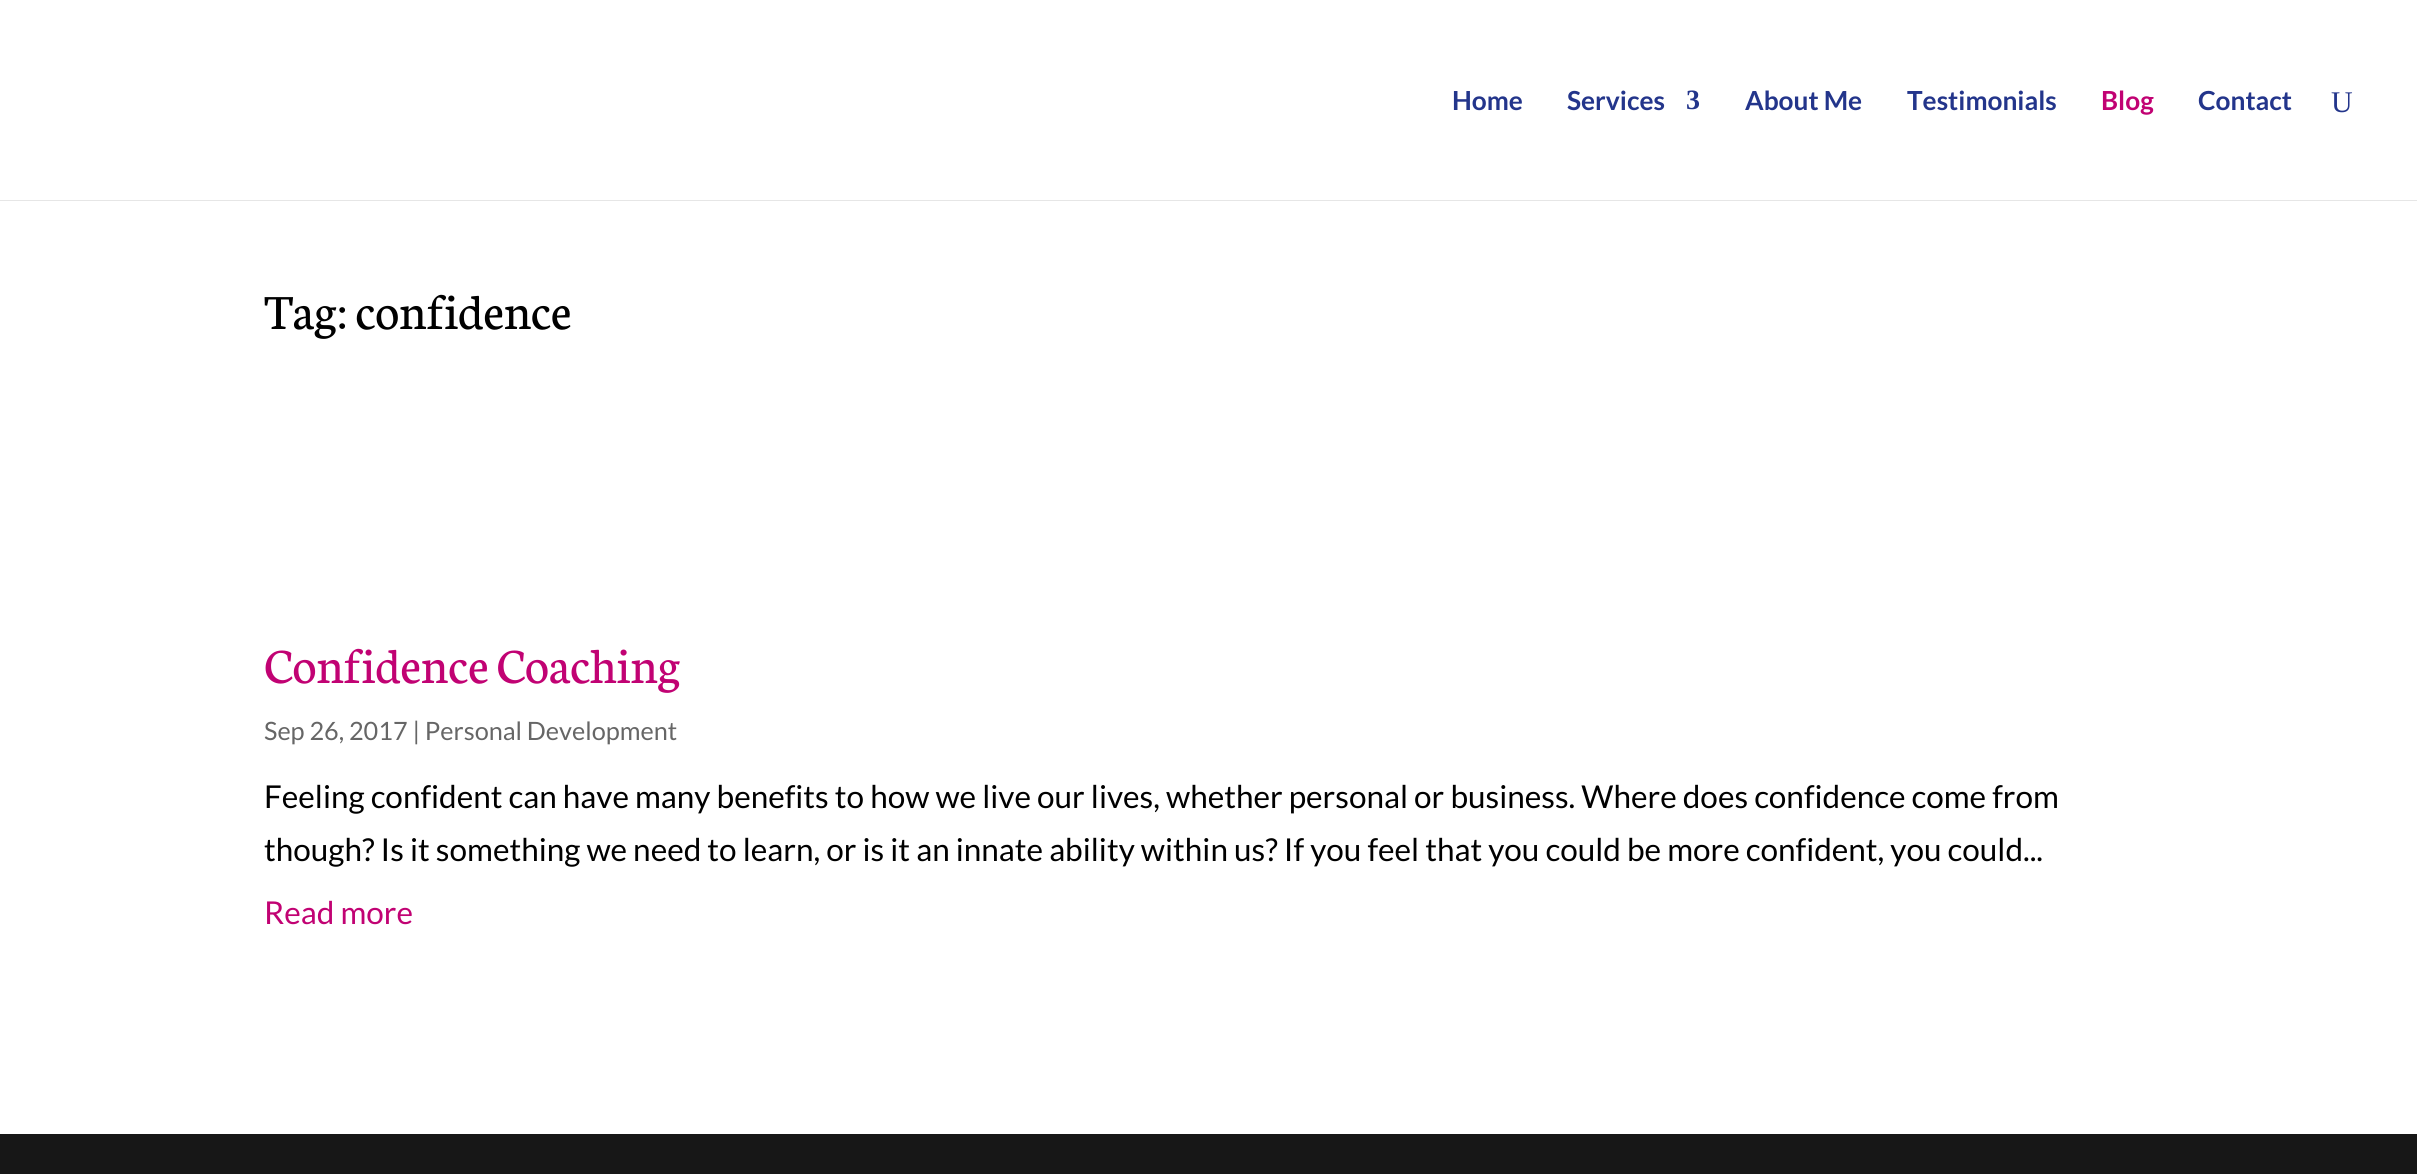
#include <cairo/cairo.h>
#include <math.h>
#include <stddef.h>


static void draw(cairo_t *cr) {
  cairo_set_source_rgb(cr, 1, 1, 1);
  cairo_paint(cr);
  cairo_set_source_rgb(cr, 230 / 255.0, 230 / 255.0, 230 / 255.0);
  cairo_new_path(cr);
  cairo_move_to(cr, 0, 200);
  cairo_line_to(cr, 0, 201);
  cairo_line_to(cr, 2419, 201);
  cairo_line_to(cr, 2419, 2);
  cairo_line_to(cr, 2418, 2);
  cairo_line_to(cr, 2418, 200);
  cairo_close_path(cr);
  cairo_fill(cr);
  cairo_set_source_rgb(cr, 23 / 255.0, 23 / 255.0, 23 / 255.0);
  cairo_rectangle(cr, 0, 1134, 2417, 40);
  cairo_fill(cr);
  cairo_select_font_face(cr, "Lato", CAIRO_FONT_SLANT_NORMAL, CAIRO_FONT_WEIGHT_BOLD);
  cairo_set_font_size(cr, 26.25);
  cairo_set_source_rgb(cr, 35 / 255.0, 53 / 255.0, 139 / 255.0);
  cairo_move_to(cr, 1452, 110);
  cairo_show_text(cr, "Home");
  cairo_move_to(cr, 1567, 110);
  cairo_show_text(cr, "Services");
  cairo_select_font_face(cr, "Liberation Serif", CAIRO_FONT_SLANT_NORMAL, CAIRO_FONT_WEIGHT_BOLD);
  cairo_set_font_size(cr, 28);
  cairo_move_to(cr, 1686, 109);
  cairo_show_text(cr, "3");
  cairo_select_font_face(cr, "Lato", CAIRO_FONT_SLANT_NORMAL, CAIRO_FONT_WEIGHT_BOLD);
  cairo_set_font_size(cr, 26.25);
  cairo_move_to(cr, 1745, 110);
  cairo_show_text(cr, "About Me");
  cairo_move_to(cr, 1907, 110);
  cairo_show_text(cr, "Testimonials");
  cairo_set_source_rgb(cr, 193 / 255.0, 2 / 255.0, 115 / 255.0);
  cairo_move_to(cr, 2101, 110);
  cairo_show_text(cr, "Blog");
  cairo_set_source_rgb(cr, 35 / 255.0, 53 / 255.0, 139 / 255.0);
  cairo_move_to(cr, 2198, 110);
  cairo_show_text(cr, "Contact");
  cairo_select_font_face(cr, "Liberation Serif", CAIRO_FONT_SLANT_NORMAL, CAIRO_FONT_WEIGHT_NORMAL);
  cairo_set_font_size(cr, 30);
  cairo_move_to(cr, 2331, 112);
  cairo_show_text(cr, "U");
  cairo_select_font_face(cr, "Neuton", CAIRO_FONT_SLANT_NORMAL, CAIRO_FONT_WEIGHT_NORMAL);
  cairo_set_font_size(cr, 52.5);
  cairo_set_source_rgb(cr, 0, 0, 0);
  cairo_move_to(cr, 264, 329);
  cairo_show_text(cr, "Tag: confidence");
  cairo_set_source_rgb(cr, 193 / 255.0, 2 / 255.0, 115 / 255.0);
  cairo_move_to(cr, 264, 683);
  cairo_show_text(cr, "Confidence Coaching");
  cairo_select_font_face(cr, "Lato", CAIRO_FONT_SLANT_NORMAL, CAIRO_FONT_WEIGHT_NORMAL);
  cairo_set_font_size(cr, 25.25);
  cairo_set_source_rgb(cr, 102 / 255.0, 102 / 255.0, 102 / 255.0);
  cairo_move_to(cr, 264, 740);
  cairo_show_text(cr, "Sep 26, 2017 | Personal Development");
  cairo_set_font_size(cr, 31.5);
  cairo_set_source_rgb(cr, 0, 0, 0);
  cairo_move_to(cr, 264, 808);
  cairo_show_text(cr, "Feeling confident can have many benefits to how we live our lives, whether personal or business. Where does confidence come from");
  cairo_move_to(cr, 264, 861);
  cairo_show_text(cr, "though? Is it something we need to learn, or is it an innate ability within us? If you feel that you could be more confident, you could...");
  cairo_set_source_rgb(cr, 193 / 255.0, 2 / 255.0, 115 / 255.0);
  cairo_move_to(cr, 264, 924);
  cairo_show_text(cr, "Read more");
}

int main(void) {
  cairo_surface_t *surface = cairo_image_surface_create(CAIRO_FORMAT_RGB24, 2417, 1174);
  cairo_t *cr = cairo_create(surface);
  cairo_font_options_t *options = cairo_font_options_create();
  cairo_font_options_set_hint_metrics(options, CAIRO_HINT_METRICS_OFF);
  cairo_font_options_set_hint_style(options, CAIRO_HINT_STYLE_NONE);
  cairo_set_font_options(cr, options);
  cairo_set_miter_limit(cr, 4);
  draw(cr);
  cairo_surface_write_to_png(surface, "out.png");
  cairo_font_options_destroy(options);
  cairo_destroy(cr);
  cairo_surface_destroy(surface);
  return 0;
}
